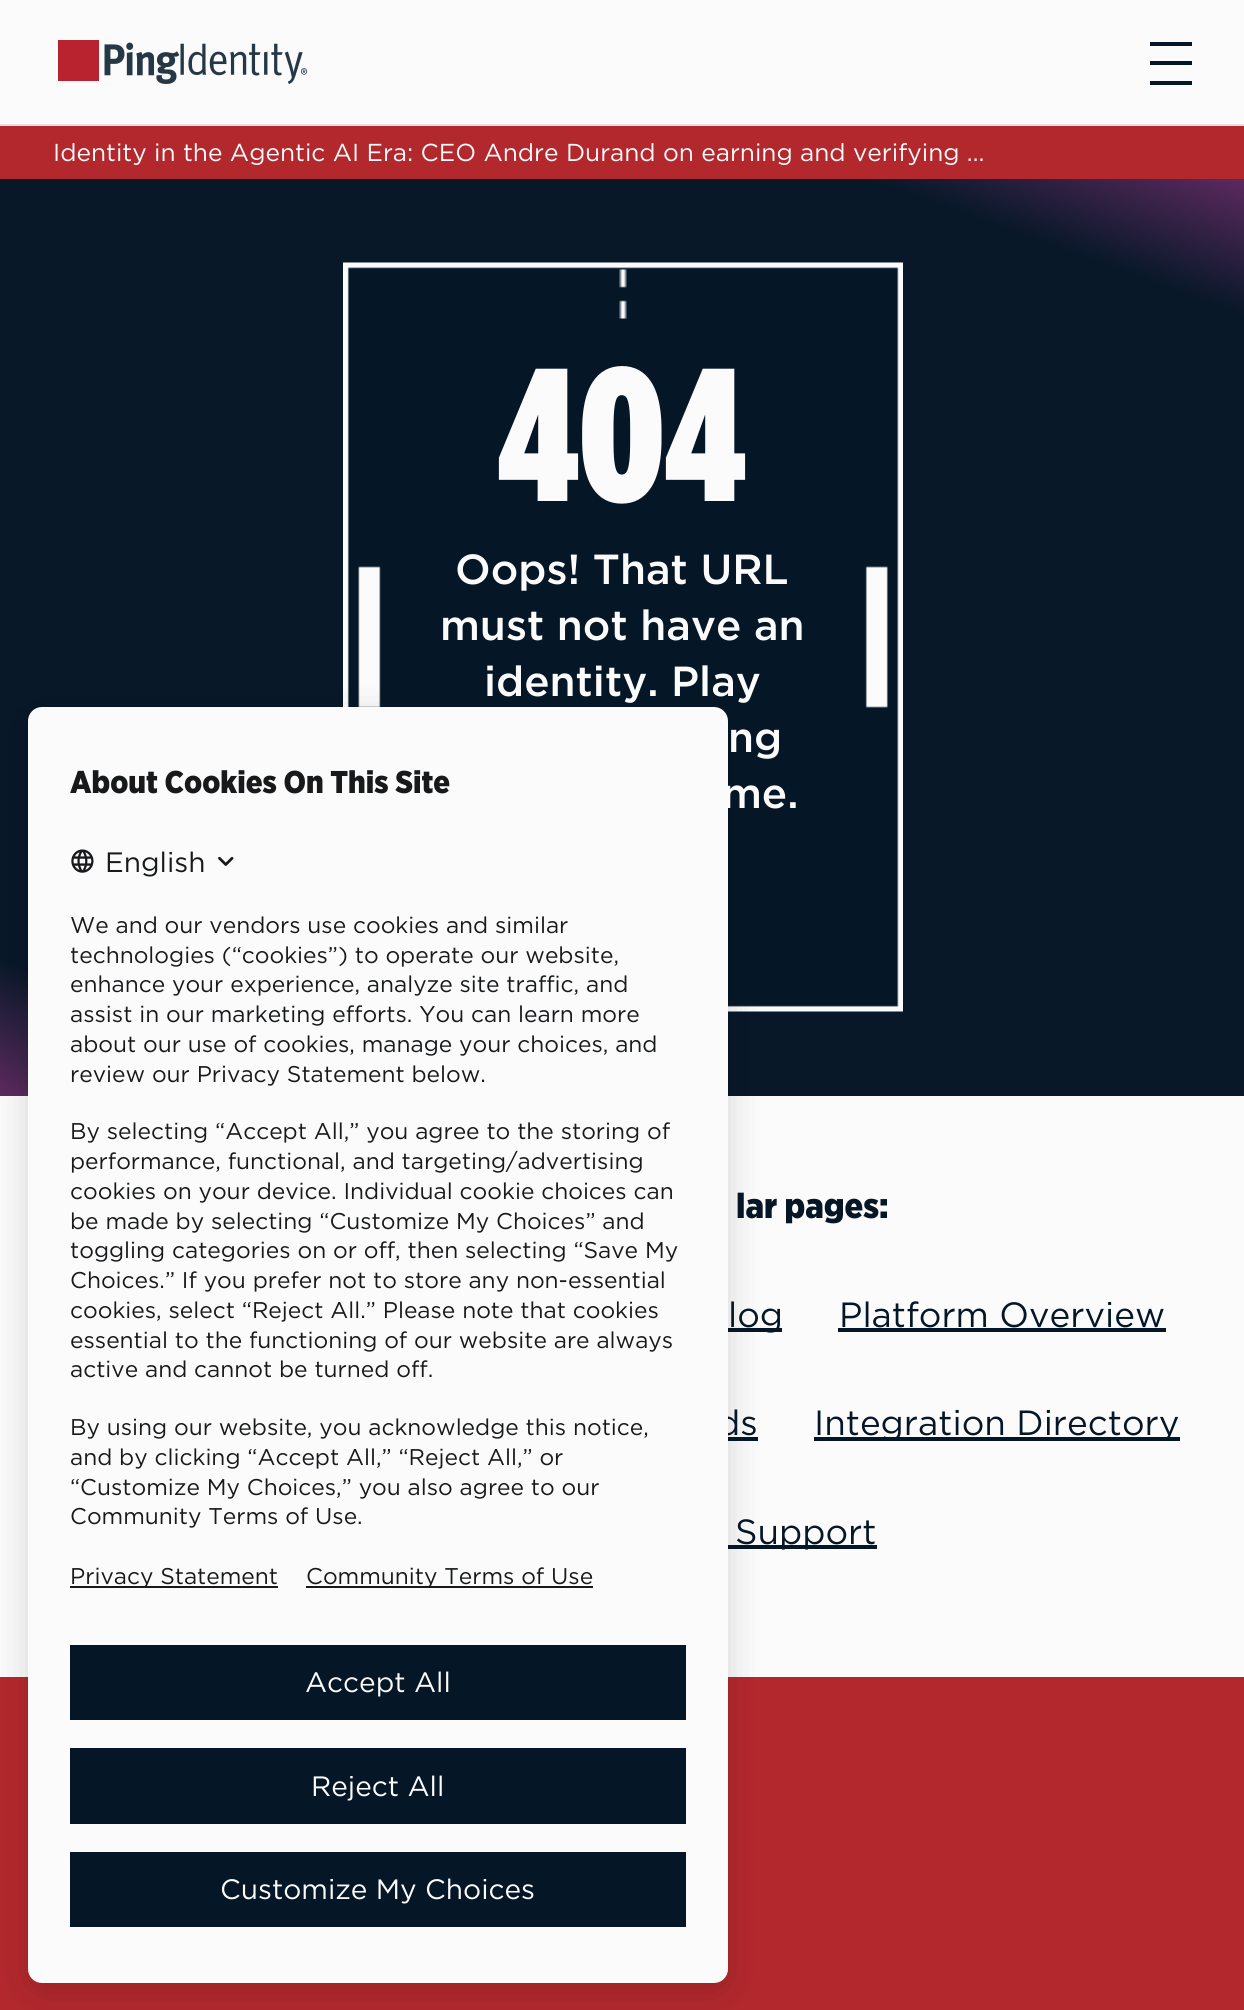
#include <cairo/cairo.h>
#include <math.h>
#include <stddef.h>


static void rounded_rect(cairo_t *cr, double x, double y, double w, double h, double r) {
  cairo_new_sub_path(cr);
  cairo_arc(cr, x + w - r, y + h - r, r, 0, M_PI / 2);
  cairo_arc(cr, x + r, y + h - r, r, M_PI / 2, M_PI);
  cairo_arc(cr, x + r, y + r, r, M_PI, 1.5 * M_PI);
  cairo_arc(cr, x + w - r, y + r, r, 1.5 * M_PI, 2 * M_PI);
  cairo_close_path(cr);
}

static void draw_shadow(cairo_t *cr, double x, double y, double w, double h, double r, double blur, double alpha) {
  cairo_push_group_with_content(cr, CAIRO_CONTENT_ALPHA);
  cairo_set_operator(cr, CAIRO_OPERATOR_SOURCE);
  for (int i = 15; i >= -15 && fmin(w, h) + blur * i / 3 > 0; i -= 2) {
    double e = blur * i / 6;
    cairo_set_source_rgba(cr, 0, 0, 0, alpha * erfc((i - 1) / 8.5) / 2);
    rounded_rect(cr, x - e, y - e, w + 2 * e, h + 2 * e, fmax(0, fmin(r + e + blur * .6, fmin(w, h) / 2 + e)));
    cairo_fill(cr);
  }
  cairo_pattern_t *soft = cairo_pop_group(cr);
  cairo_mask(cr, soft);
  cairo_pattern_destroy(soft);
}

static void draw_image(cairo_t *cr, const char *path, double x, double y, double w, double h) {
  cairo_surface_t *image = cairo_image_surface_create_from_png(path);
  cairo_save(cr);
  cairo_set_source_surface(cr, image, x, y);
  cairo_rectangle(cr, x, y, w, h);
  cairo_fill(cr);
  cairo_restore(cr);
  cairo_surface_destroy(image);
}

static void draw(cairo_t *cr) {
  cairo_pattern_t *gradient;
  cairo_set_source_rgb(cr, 251 / 255.0, 251 / 255.0, 252 / 255.0);
  cairo_paint(cr);
  cairo_set_source_rgb(cr, 224 / 255.0, 226 / 255.0, 228 / 255.0);
  cairo_rectangle(cr, 0, 124, 1244, 2);
  cairo_fill(cr);
  draw_image(cr, "images/1.png", 58, 40, 250, 44);
  cairo_set_source_rgb(cr, 5 / 255.0, 23 / 255.0, 39 / 255.0);
  cairo_rectangle(cr, 1150, 42, 42, 4);
  cairo_fill(cr);
  cairo_rectangle(cr, 1150, 61, 42, 4);
  cairo_fill(cr);
  cairo_rectangle(cr, 1150, 81, 42, 4);
  cairo_fill(cr);
  cairo_set_source_rgb(cr, 179 / 255.0, 40 / 255.0, 45 / 255.0);
  cairo_rectangle(cr, 0, 126, 1244, 53);
  cairo_fill(cr);
  gradient = cairo_pattern_create_linear(842, 32, 402, 1242);
  cairo_pattern_add_color_stop_rgba(gradient, 0, 92 / 255.0, 42 / 255.0, 94 / 255.0, 1);
  cairo_pattern_add_color_stop_rgba(gradient, 0.1, 8 / 255.0, 24 / 255.0, 41 / 255.0, 1);
  cairo_pattern_add_color_stop_rgba(gradient, 0.9, 8 / 255.0, 24 / 255.0, 41 / 255.0, 1);
  cairo_pattern_add_color_stop_rgba(gradient, 1, 92 / 255.0, 42 / 255.0, 94 / 255.0, 1);
  cairo_set_source(cr, gradient);
  cairo_pattern_destroy(gradient);
  cairo_rectangle(cr, 0, 179, 1244, 917);
  cairo_fill(cr);
  cairo_set_source_rgb(cr, 5 / 255.0, 23 / 255.0, 39 / 255.0);
  cairo_rectangle(cr, 347, 267, 556, 745);
  cairo_fill(cr);
  draw_image(cr, "images/2.png", 343, 262, 560, 750);
  cairo_rectangle(cr, 619, 332, 8, 617);
  cairo_fill(cr);
  cairo_rectangle(cr, 728, 1328, 54, 4);
  cairo_fill(cr);
  cairo_rectangle(cr, 838, 1328, 328, 4);
  cairo_fill(cr);
  cairo_rectangle(cr, 728, 1437, 30, 4);
  cairo_fill(cr);
  cairo_rectangle(cr, 814, 1437, 366, 4);
  cairo_fill(cr);
  cairo_rectangle(cr, 728, 1545, 149, 4);
  cairo_fill(cr);
  cairo_set_source_rgb(cr, 179 / 255.0, 40 / 255.0, 45 / 255.0);
  cairo_rectangle(cr, 0, 1677, 1244, 333);
  cairo_fill(cr);
  cairo_set_source_rgb(cr, 0, 0, 0);
  draw_shadow(cr, 28, 716, 700, 1276, 14, 17.5, 0.15);
  cairo_select_font_face(cr, "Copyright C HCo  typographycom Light", CAIRO_FONT_SLANT_NORMAL, CAIRO_FONT_WEIGHT_NORMAL);
  cairo_set_font_size(cr, 24.5);
  cairo_set_source_rgb(cr, 251 / 255.0, 251 / 255.0, 252 / 255.0);
  cairo_move_to(cr, 53, 161);
  cairo_show_text(cr, "Identity in the Agentic AI Era: CEO Andre Durand on earning and verifying …");
  cairo_select_font_face(cr, "Copyright C HCo  typographycom Medium", CAIRO_FONT_SLANT_NORMAL, CAIRO_FONT_WEIGHT_NORMAL);
  cairo_set_font_size(cr, 189);
  cairo_move_to(cr, 497, 501);
  cairo_show_text(cr, "404");
  cairo_select_font_face(cr, "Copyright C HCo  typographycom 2 Light", CAIRO_FONT_SLANT_NORMAL, CAIRO_FONT_WEIGHT_NORMAL);
  cairo_set_font_size(cr, 42);
  cairo_move_to(cr, 455, 584);
  cairo_show_text(cr, "Oops! That URL");
  cairo_move_to(cr, 440, 640);
  cairo_show_text(cr, "must not have an");
  cairo_move_to(cr, 484, 696);
  cairo_show_text(cr, "identity. Play");
  cairo_move_to(cr, 728, 752);
  cairo_show_text(cr, "ng");
  cairo_move_to(cr, 722, 808);
  cairo_show_text(cr, "me.");
  cairo_select_font_face(cr, "Copyright C HCo  typographycom", CAIRO_FONT_SLANT_NORMAL, CAIRO_FONT_WEIGHT_NORMAL);
  cairo_set_font_size(cr, 35);
  cairo_set_source_rgb(cr, 5 / 255.0, 23 / 255.0, 39 / 255.0);
  cairo_move_to(cr, 736, 1218);
  cairo_show_text(cr, "lar pages:");
  cairo_select_font_face(cr, "Copyright C HCo  typographycom Light", CAIRO_FONT_SLANT_NORMAL, CAIRO_FONT_WEIGHT_NORMAL);
  cairo_move_to(cr, 728, 1327);
  cairo_show_text(cr, "log");
  cairo_move_to(cr, 839, 1327);
  cairo_show_text(cr, "Platform Overview");
  cairo_move_to(cr, 717, 1435);
  cairo_show_text(cr, "ds");
  cairo_move_to(cr, 814, 1435);
  cairo_show_text(cr, "Integration Directory");
  cairo_move_to(cr, 735, 1544);
  cairo_show_text(cr, "Support");
  cairo_set_source_rgb(cr, 251 / 255.0, 251 / 255.0, 252 / 255.0);
  rounded_rect(cr, 28, 707, 700, 1276, 14);
  cairo_fill(cr);
  cairo_select_font_face(cr, "Copyright C HCo  typographycom", CAIRO_FONT_SLANT_NORMAL, CAIRO_FONT_WEIGHT_NORMAL);
  cairo_set_font_size(cr, 31.5);
  cairo_set_source_rgb(cr, 23 / 255.0, 25 / 255.0, 26 / 255.0);
  cairo_move_to(cr, 70, 793);
  cairo_show_text(cr, "About Cookies On This Site");
  draw_image(cr, "images/3.png", 71, 849, 23, 24);
  cairo_select_font_face(cr, "Copyright C HCo  typographycom Light", CAIRO_FONT_SLANT_NORMAL, CAIRO_FONT_WEIGHT_NORMAL);
  cairo_set_font_size(cr, 28);
  cairo_move_to(cr, 105, 872);
  cairo_show_text(cr, "English");
  draw_image(cr, "images/4.png", 218, 856, 16, 10);
  cairo_set_font_size(cr, 22.75);
  cairo_move_to(cr, 70, 933);
  cairo_show_text(cr, "We and our vendors use cookies and similar");
  cairo_move_to(cr, 70, 963);
  cairo_show_text(cr, "technologies (“cookies”) to operate our website,");
  cairo_move_to(cr, 70, 992);
  cairo_show_text(cr, "enhance your experience, analyze site traffic, and");
  cairo_move_to(cr, 70, 1022);
  cairo_show_text(cr, "assist in our marketing efforts. You can learn more");
  cairo_move_to(cr, 70, 1052);
  cairo_show_text(cr, "about our use of cookies, manage your choices, and");
  cairo_move_to(cr, 70, 1082);
  cairo_show_text(cr, "review our Privacy Statement below.");
  cairo_move_to(cr, 70, 1139);
  cairo_show_text(cr, "By selecting “Accept All,” you agree to the storing of");
  cairo_move_to(cr, 70, 1169);
  cairo_show_text(cr, "performance, functional, and targeting/advertising");
  cairo_move_to(cr, 70, 1199);
  cairo_show_text(cr, "cookies on your device. Individual cookie choices can");
  cairo_move_to(cr, 70, 1229);
  cairo_show_text(cr, "be made by selecting “Customize My Choices” and");
  cairo_move_to(cr, 70, 1258);
  cairo_show_text(cr, "toggling categories on or off, then selecting “Save My");
  cairo_move_to(cr, 70, 1288);
  cairo_show_text(cr, "Choices.” If you prefer not to store any non-essential");
  cairo_move_to(cr, 70, 1318);
  cairo_show_text(cr, "cookies, select “Reject All.” Please note that cookies");
  cairo_move_to(cr, 70, 1348);
  cairo_show_text(cr, "essential to the functioning of our website are always");
  cairo_move_to(cr, 70, 1377);
  cairo_show_text(cr, "active and cannot be turned off.");
  cairo_move_to(cr, 70, 1435);
  cairo_show_text(cr, "By using our website, you acknowledge this notice,");
  cairo_move_to(cr, 70, 1465);
  cairo_show_text(cr, "and by clicking “Accept All,” “Reject All,” or");
  cairo_move_to(cr, 70, 1495);
  cairo_show_text(cr, "“Customize My Choices,” you also agree to our");
  cairo_move_to(cr, 70, 1524);
  cairo_show_text(cr, "Community Terms of Use.");
  cairo_rectangle(cr, 70, 1586, 208, 2);
  cairo_fill(cr);
  cairo_move_to(cr, 70, 1584);
  cairo_show_text(cr, "Privacy Statement");
  cairo_rectangle(cr, 306, 1586, 287, 2);
  cairo_fill(cr);
  cairo_move_to(cr, 306, 1584);
  cairo_show_text(cr, "Community Terms of Use");
  cairo_set_source_rgb(cr, 5 / 255.0, 23 / 255.0, 39 / 255.0);
  cairo_rectangle(cr, 70, 1645, 616, 75);
  cairo_fill(cr);
  cairo_set_font_size(cr, 28);
  cairo_set_source_rgb(cr, 251 / 255.0, 251 / 255.0, 252 / 255.0);
  cairo_move_to(cr, 305, 1692);
  cairo_show_text(cr, "Accept All");
  cairo_set_source_rgb(cr, 5 / 255.0, 23 / 255.0, 39 / 255.0);
  cairo_rectangle(cr, 70, 1748, 616, 76);
  cairo_fill(cr);
  cairo_set_source_rgb(cr, 251 / 255.0, 251 / 255.0, 252 / 255.0);
  cairo_move_to(cr, 311, 1796);
  cairo_show_text(cr, "Reject All");
  cairo_set_source_rgb(cr, 5 / 255.0, 23 / 255.0, 39 / 255.0);
  cairo_rectangle(cr, 70, 1852, 616, 75);
  cairo_fill(cr);
  cairo_set_source_rgb(cr, 251 / 255.0, 251 / 255.0, 252 / 255.0);
  cairo_move_to(cr, 220, 1899);
  cairo_show_text(cr, "Customize My Choices");
}

int main(void) {
  cairo_surface_t *surface = cairo_image_surface_create(CAIRO_FORMAT_RGB24, 1244, 2010);
  cairo_t *cr = cairo_create(surface);
  cairo_font_options_t *options = cairo_font_options_create();
  cairo_font_options_set_hint_metrics(options, CAIRO_HINT_METRICS_OFF);
  cairo_font_options_set_hint_style(options, CAIRO_HINT_STYLE_NONE);
  cairo_set_font_options(cr, options);
  cairo_set_miter_limit(cr, 4);
  draw(cr);
  cairo_surface_write_to_png(surface, "out.png");
  cairo_font_options_destroy(options);
  cairo_destroy(cr);
  cairo_surface_destroy(surface);
  return 0;
}
